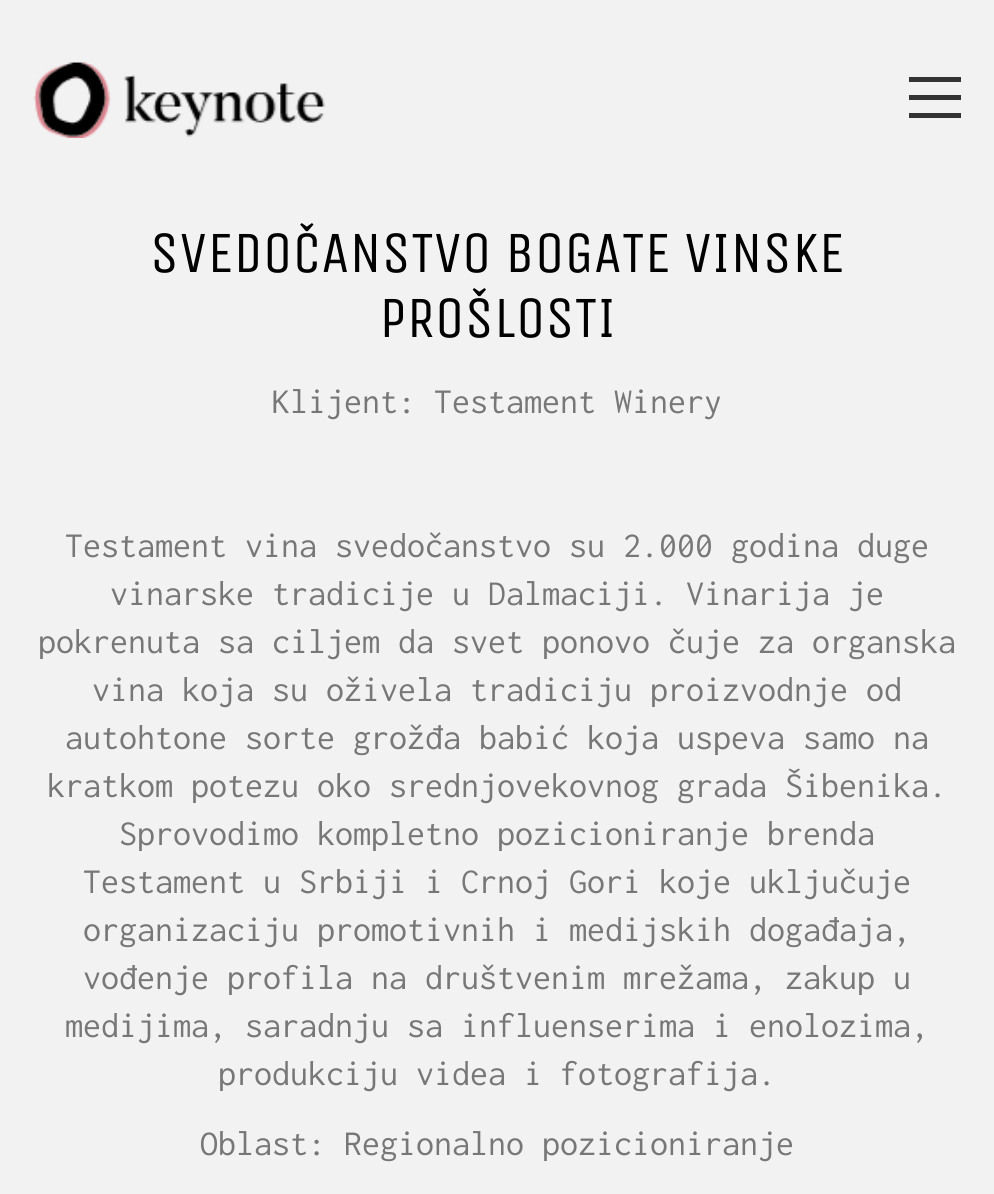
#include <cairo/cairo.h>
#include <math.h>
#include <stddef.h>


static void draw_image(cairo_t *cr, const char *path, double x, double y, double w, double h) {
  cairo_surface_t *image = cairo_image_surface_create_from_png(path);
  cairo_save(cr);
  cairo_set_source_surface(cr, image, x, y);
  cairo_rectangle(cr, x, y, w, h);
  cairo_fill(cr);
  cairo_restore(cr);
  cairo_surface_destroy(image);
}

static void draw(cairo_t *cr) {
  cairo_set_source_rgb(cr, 242 / 255.0, 242 / 255.0, 242 / 255.0);
  cairo_paint(cr);
  draw_image(cr, "images/1.png", 33, 62, 293, 76);
  cairo_set_source_rgb(cr, 51 / 255.0, 51 / 255.0, 51 / 255.0);
  cairo_rectangle(cr, 909, 77, 52, 5);
  cairo_fill(cr);
  cairo_rectangle(cr, 909, 95, 52, 5);
  cairo_fill(cr);
  cairo_rectangle(cr, 909, 113, 52, 5);
  cairo_fill(cr);
  cairo_select_font_face(cr, "Unica One", CAIRO_FONT_SLANT_NORMAL, CAIRO_FONT_WEIGHT_NORMAL);
  cairo_set_font_size(cr, 58.5);
  cairo_set_source_rgb(cr, 0, 0, 0);
  cairo_move_to(cr, 150, 272);
  cairo_show_text(cr, "SVEDOČANSTVO BOGATE VINSKE");
  cairo_move_to(cr, 379, 337);
  cairo_show_text(cr, "PROŠLOSTI");
  cairo_select_font_face(cr, "Inconsolata", CAIRO_FONT_SLANT_NORMAL, CAIRO_FONT_WEIGHT_NORMAL);
  cairo_set_font_size(cr, 36);
  cairo_set_source_rgb(cr, 119 / 255.0, 119 / 255.0, 119 / 255.0);
  cairo_move_to(cr, 272, 413);
  cairo_show_text(cr, "Klijent: Testament Winery");
  cairo_move_to(cr, 65, 557);
  cairo_show_text(cr, "Testament vina svedočanstvo su 2.000 godina duge");
  cairo_move_to(cr, 110, 605);
  cairo_show_text(cr, "vinarske tradicije u Dalmaciji. Vinarija je");
  cairo_move_to(cr, 38, 653);
  cairo_show_text(cr, "pokrenuta sa ciljem da svet ponovo čuje za organska");
  cairo_move_to(cr, 92, 701);
  cairo_show_text(cr, "vina koja su oživela tradiciju proizvodnje od");
  cairo_move_to(cr, 65, 749);
  cairo_show_text(cr, "autohtone sorte grožđa babić koja uspeva samo na");
  cairo_move_to(cr, 47, 797);
  cairo_show_text(cr, "kratkom potezu oko srednjovekovnog grada Šibenika.");
  cairo_move_to(cr, 119, 845);
  cairo_show_text(cr, "Sprovodimo kompletno pozicioniranje brenda");
  cairo_move_to(cr, 83, 893);
  cairo_show_text(cr, "Testament u Srbiji i Crnoj Gori koje uključuje");
  cairo_move_to(cr, 83, 941);
  cairo_show_text(cr, "organizaciju promotivnih i medijskih događaja,");
  cairo_move_to(cr, 83, 989);
  cairo_show_text(cr, "vođenje profila na društvenim mrežama, zakup u");
  cairo_move_to(cr, 65, 1037);
  cairo_show_text(cr, "medijima, saradnju sa influenserima i enolozima,");
  cairo_move_to(cr, 218, 1085);
  cairo_show_text(cr, "produkciju videa i fotografija.");
  cairo_move_to(cr, 200, 1155);
  cairo_show_text(cr, "Oblast: Regionalno pozicioniranje");
}

int main(void) {
  cairo_surface_t *surface = cairo_image_surface_create(CAIRO_FORMAT_RGB24, 994, 1194);
  cairo_t *cr = cairo_create(surface);
  cairo_font_options_t *options = cairo_font_options_create();
  cairo_font_options_set_hint_metrics(options, CAIRO_HINT_METRICS_OFF);
  cairo_font_options_set_hint_style(options, CAIRO_HINT_STYLE_NONE);
  cairo_set_font_options(cr, options);
  cairo_set_miter_limit(cr, 4);
  draw(cr);
  cairo_surface_write_to_png(surface, "out.png");
  cairo_font_options_destroy(options);
  cairo_destroy(cr);
  cairo_surface_destroy(surface);
  return 0;
}
